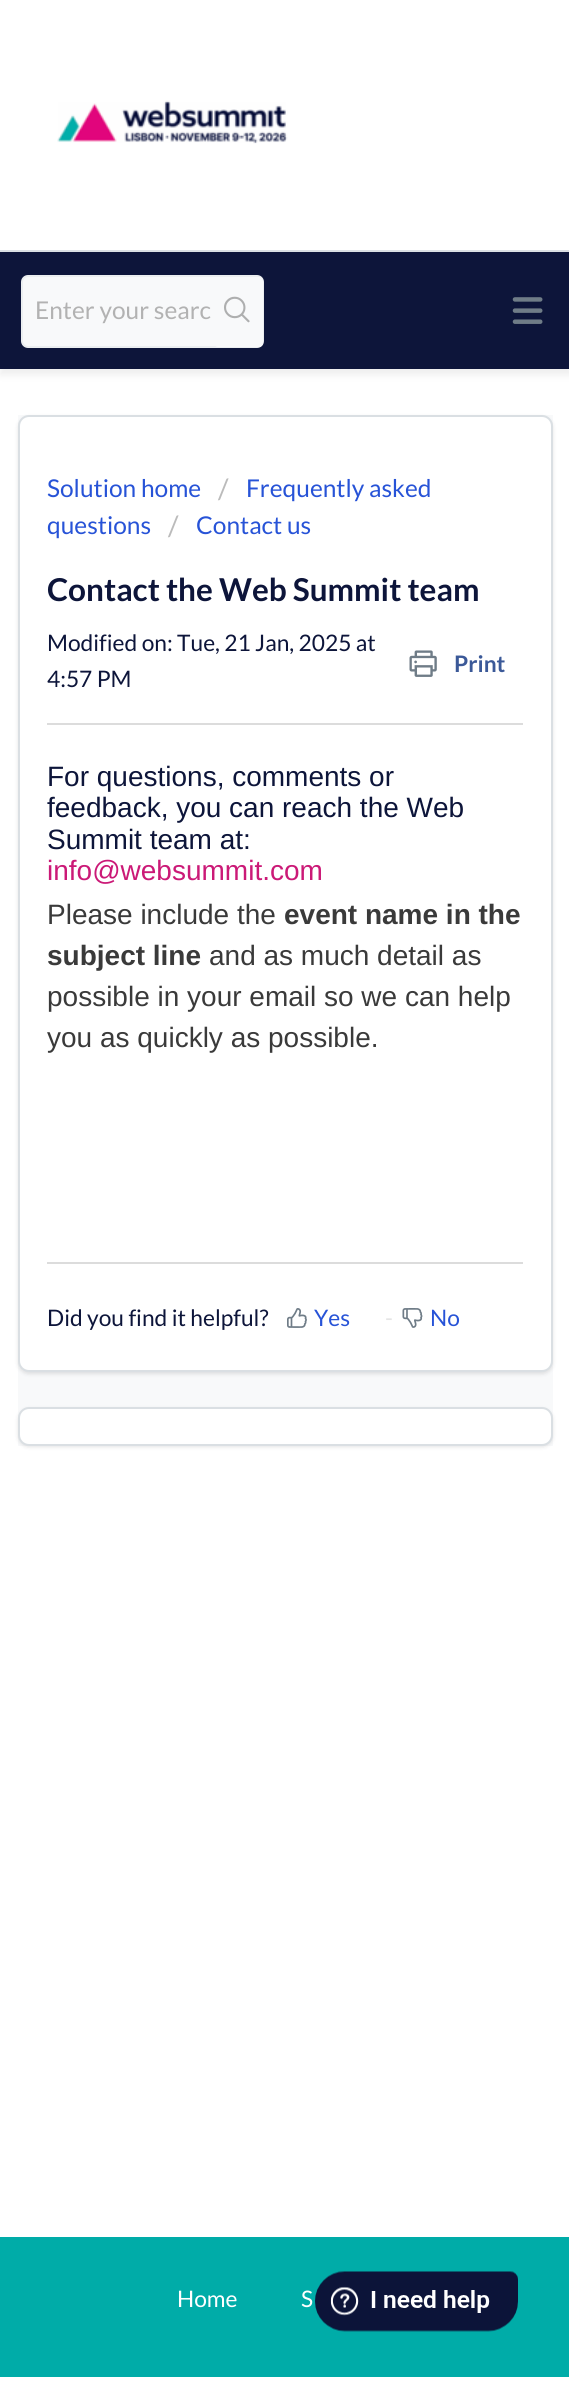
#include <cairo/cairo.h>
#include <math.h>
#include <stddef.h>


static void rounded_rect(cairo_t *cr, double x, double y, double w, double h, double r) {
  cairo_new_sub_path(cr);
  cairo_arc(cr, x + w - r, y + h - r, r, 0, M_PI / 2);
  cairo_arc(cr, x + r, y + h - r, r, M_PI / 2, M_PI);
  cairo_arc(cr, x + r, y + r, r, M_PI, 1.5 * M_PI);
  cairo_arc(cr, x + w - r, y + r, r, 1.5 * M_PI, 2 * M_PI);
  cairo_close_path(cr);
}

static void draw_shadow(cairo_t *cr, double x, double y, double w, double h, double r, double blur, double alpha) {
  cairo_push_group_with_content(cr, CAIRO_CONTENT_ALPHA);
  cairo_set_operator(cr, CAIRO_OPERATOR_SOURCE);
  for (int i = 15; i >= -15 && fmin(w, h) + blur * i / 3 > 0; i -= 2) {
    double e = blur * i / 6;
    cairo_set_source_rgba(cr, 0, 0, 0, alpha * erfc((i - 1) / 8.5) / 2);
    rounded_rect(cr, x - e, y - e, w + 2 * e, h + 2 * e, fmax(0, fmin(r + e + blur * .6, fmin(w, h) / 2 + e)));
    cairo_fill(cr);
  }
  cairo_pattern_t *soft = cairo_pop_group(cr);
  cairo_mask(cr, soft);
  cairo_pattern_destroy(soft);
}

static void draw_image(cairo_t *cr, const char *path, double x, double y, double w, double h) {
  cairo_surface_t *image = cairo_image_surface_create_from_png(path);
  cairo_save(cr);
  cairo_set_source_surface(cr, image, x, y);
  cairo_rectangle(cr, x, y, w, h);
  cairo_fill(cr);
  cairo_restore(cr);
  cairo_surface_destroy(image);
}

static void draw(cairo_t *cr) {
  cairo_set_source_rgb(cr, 1, 1, 1);
  cairo_paint(cr);
  cairo_set_source_rgb(cr, 218 / 255.0, 223 / 255.0, 227 / 255.0);
  cairo_rectangle(cr, 0, 250, 569, 2);
  cairo_fill(cr);
  draw_image(cr, "images/1.png", 57, 100, 231, 44);
  cairo_set_source_rgb(cr, 238 / 255.0, 238 / 255.0, 238 / 255.0);
  draw_shadow(cr, 0, 257, 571, 118, 0, 3.5, 1);
  cairo_set_source_rgb(cr, 13 / 255.0, 21 / 255.0, 58 / 255.0);
  cairo_rectangle(cr, 0, 252, 569, 117);
  cairo_fill(cr);
  draw_image(cr, "images/2.png", 512, 297, 31, 27);
  cairo_set_source_rgb(cr, 248 / 255.0, 249 / 255.0, 250 / 255.0);
  rounded_rect(cr, 22, 276, 241, 71, 6);
  cairo_fill_preserve(cr);
  cairo_set_source_rgb(cr, 235 / 255.0, 238 / 255.0, 240 / 255.0);
  cairo_stroke(cr);
  cairo_set_source_rgb(cr, 248 / 255.0, 249 / 255.0, 250 / 255.0);
  rounded_rect(cr, 214, 277, 49, 70, 4);
  cairo_fill(cr);
  draw_image(cr, "images/3.png", 224, 296, 26, 27);
  cairo_rectangle(cr, 18, 415, 535, 1031);
  cairo_fill(cr);
  cairo_set_source_rgb(cr, 63 / 255.0, 63 / 255.0, 68 / 255.0);
  draw_shadow(cr, 18, 417, 535, 957, 11, 2, 0.15);
  cairo_set_source_rgb(cr, 1, 1, 1);
  rounded_rect(cr, 19, 416, 533, 955, 10);
  cairo_fill_preserve(cr);
  cairo_set_source_rgb(cr, 218 / 255.0, 223 / 255.0, 227 / 255.0);
  cairo_stroke(cr);
  draw_image(cr, "images/4.png", 409, 650, 28, 27);
  cairo_set_source_rgb(cr, 220 / 255.0, 220 / 255.0, 220 / 255.0);
  cairo_rectangle(cr, 47, 723, 476, 2);
  cairo_fill(cr);
  cairo_rectangle(cr, 47, 1262, 476, 2);
  cairo_fill(cr);
  draw_image(cr, "images/5.png", 287, 1308, 20, 20);
  draw_image(cr, "images/6.png", 402, 1308, 21, 20);
  cairo_set_source_rgb(cr, 63 / 255.0, 63 / 255.0, 68 / 255.0);
  draw_shadow(cr, 18, 1409, 535, 38, 11, 2, 0.15);
  cairo_set_source_rgb(cr, 1, 1, 1);
  rounded_rect(cr, 19, 1408, 533, 37, 10);
  cairo_fill_preserve(cr);
  cairo_set_source_rgb(cr, 218 / 255.0, 223 / 255.0, 227 / 255.0);
  cairo_stroke(cr);
  cairo_set_source_rgb(cr, 0, 172 / 255.0, 168 / 255.0);
  cairo_rectangle(cr, 0, 2237, 569, 140);
  cairo_fill(cr);
  draw_image(cr, "images/7.png", 315, 2271, 203, 61);
  cairo_select_font_face(cr, "Lato", CAIRO_FONT_SLANT_NORMAL, CAIRO_FONT_WEIGHT_NORMAL);
  cairo_set_font_size(cr, 24.5);
  cairo_set_source_rgb(cr, 178 / 255.0, 178 / 255.0, 178 / 255.0);
  cairo_move_to(cr, 35, 319);
  cairo_show_text(cr, "Enter your searc");
  cairo_set_source_rgb(cr, 39 / 255.0, 83 / 255.0, 215 / 255.0);
  cairo_move_to(cr, 47, 497);
  cairo_show_text(cr, "Solution home");
  cairo_set_font_size(cr, 28);
  cairo_set_source_rgb(cr, 187 / 255.0, 187 / 255.0, 187 / 255.0);
  cairo_move_to(cr, 218, 499);
  cairo_show_text(cr, "/");
  cairo_set_font_size(cr, 24.5);
  cairo_set_source_rgb(cr, 39 / 255.0, 83 / 255.0, 215 / 255.0);
  cairo_move_to(cr, 246, 497);
  cairo_show_text(cr, "Frequently asked");
  cairo_move_to(cr, 47, 534);
  cairo_show_text(cr, "questions");
  cairo_set_font_size(cr, 28);
  cairo_set_source_rgb(cr, 187 / 255.0, 187 / 255.0, 187 / 255.0);
  cairo_move_to(cr, 168, 536);
  cairo_show_text(cr, "/");
  cairo_set_font_size(cr, 24.5);
  cairo_set_source_rgb(cr, 39 / 255.0, 83 / 255.0, 215 / 255.0);
  cairo_move_to(cr, 196, 534);
  cairo_show_text(cr, "Contact us");
  cairo_select_font_face(cr, "Lato", CAIRO_FONT_SLANT_NORMAL, CAIRO_FONT_WEIGHT_BOLD);
  cairo_set_font_size(cr, 31.5);
  cairo_set_source_rgb(cr, 13 / 255.0, 21 / 255.0, 58 / 255.0);
  cairo_move_to(cr, 47, 601);
  cairo_show_text(cr, "Contact the Web Summit team");
  cairo_set_font_size(cr, 22.75);
  cairo_set_source_rgb(cr, 59 / 255.0, 89 / 255.0, 152 / 255.0);
  cairo_move_to(cr, 454, 672);
  cairo_show_text(cr, "Print");
  cairo_select_font_face(cr, "Lato", CAIRO_FONT_SLANT_NORMAL, CAIRO_FONT_WEIGHT_NORMAL);
  cairo_set_source_rgb(cr, 13 / 255.0, 21 / 255.0, 58 / 255.0);
  cairo_move_to(cr, 47, 651);
  cairo_show_text(cr, "Modified on: Tue, 21 Jan, 2025 at");
  cairo_move_to(cr, 47, 687);
  cairo_show_text(cr, "4:57 PM");
  cairo_select_font_face(cr, "Liberation Sans", CAIRO_FONT_SLANT_NORMAL, CAIRO_FONT_WEIGHT_NORMAL);
  cairo_set_font_size(cr, 28);
  cairo_move_to(cr, 47, 786);
  cairo_show_text(cr, "For questions, comments or");
  cairo_move_to(cr, 47, 817);
  cairo_show_text(cr, "feedback, you can reach the Web");
  cairo_move_to(cr, 47, 849);
  cairo_show_text(cr, "Summit team at:");
  cairo_set_source_rgb(cr, 203 / 255.0, 25 / 255.0, 119 / 255.0);
  cairo_move_to(cr, 47, 880);
  cairo_show_text(cr, "info@websummit.com");
  cairo_set_source_rgb(cr, 58 / 255.0, 58 / 255.0, 58 / 255.0);
  cairo_move_to(cr, 47, 924);
  cairo_show_text(cr, "Please include the");
  cairo_select_font_face(cr, "Liberation Sans", CAIRO_FONT_SLANT_NORMAL, CAIRO_FONT_WEIGHT_BOLD);
  cairo_move_to(cr, 284, 924);
  cairo_show_text(cr, "event name in the");
  cairo_move_to(cr, 47, 965);
  cairo_show_text(cr, "subject line");
  cairo_select_font_face(cr, "Liberation Sans", CAIRO_FONT_SLANT_NORMAL, CAIRO_FONT_WEIGHT_NORMAL);
  cairo_move_to(cr, 209, 965);
  cairo_show_text(cr, "and as much detail as");
  cairo_move_to(cr, 47, 1006);
  cairo_show_text(cr, "possible in your email so we can help");
  cairo_move_to(cr, 47, 1047);
  cairo_show_text(cr, "you as quickly as possible.");
  cairo_select_font_face(cr, "Lato", CAIRO_FONT_SLANT_NORMAL, CAIRO_FONT_WEIGHT_NORMAL);
  cairo_set_font_size(cr, 22.75);
  cairo_set_source_rgb(cr, 13 / 255.0, 21 / 255.0, 58 / 255.0);
  cairo_move_to(cr, 47, 1326);
  cairo_show_text(cr, "Did you find it helpful?");
  cairo_set_source_rgb(cr, 39 / 255.0, 83 / 255.0, 215 / 255.0);
  cairo_move_to(cr, 314, 1326);
  cairo_show_text(cr, "Yes");
  cairo_set_source_rgb(cr, 229 / 255.0, 229 / 255.0, 229 / 255.0);
  cairo_move_to(cr, 385, 1326);
  cairo_show_text(cr, "-");
  cairo_set_source_rgb(cr, 39 / 255.0, 83 / 255.0, 215 / 255.0);
  cairo_move_to(cr, 430, 1326);
  cairo_show_text(cr, "No");
  cairo_set_source_rgb(cr, 1, 1, 1);
  cairo_move_to(cr, 177, 2307);
  cairo_show_text(cr, "Home");
  cairo_move_to(cr, 301, 2307);
  cairo_show_text(cr, "S");
}

int main(void) {
  cairo_surface_t *surface = cairo_image_surface_create(CAIRO_FORMAT_RGB24, 569, 2394);
  cairo_t *cr = cairo_create(surface);
  cairo_font_options_t *options = cairo_font_options_create();
  cairo_font_options_set_hint_metrics(options, CAIRO_HINT_METRICS_OFF);
  cairo_font_options_set_hint_style(options, CAIRO_HINT_STYLE_NONE);
  cairo_set_font_options(cr, options);
  cairo_set_miter_limit(cr, 4);
  draw(cr);
  cairo_surface_write_to_png(surface, "out.png");
  cairo_font_options_destroy(options);
  cairo_destroy(cr);
  cairo_surface_destroy(surface);
  return 0;
}
